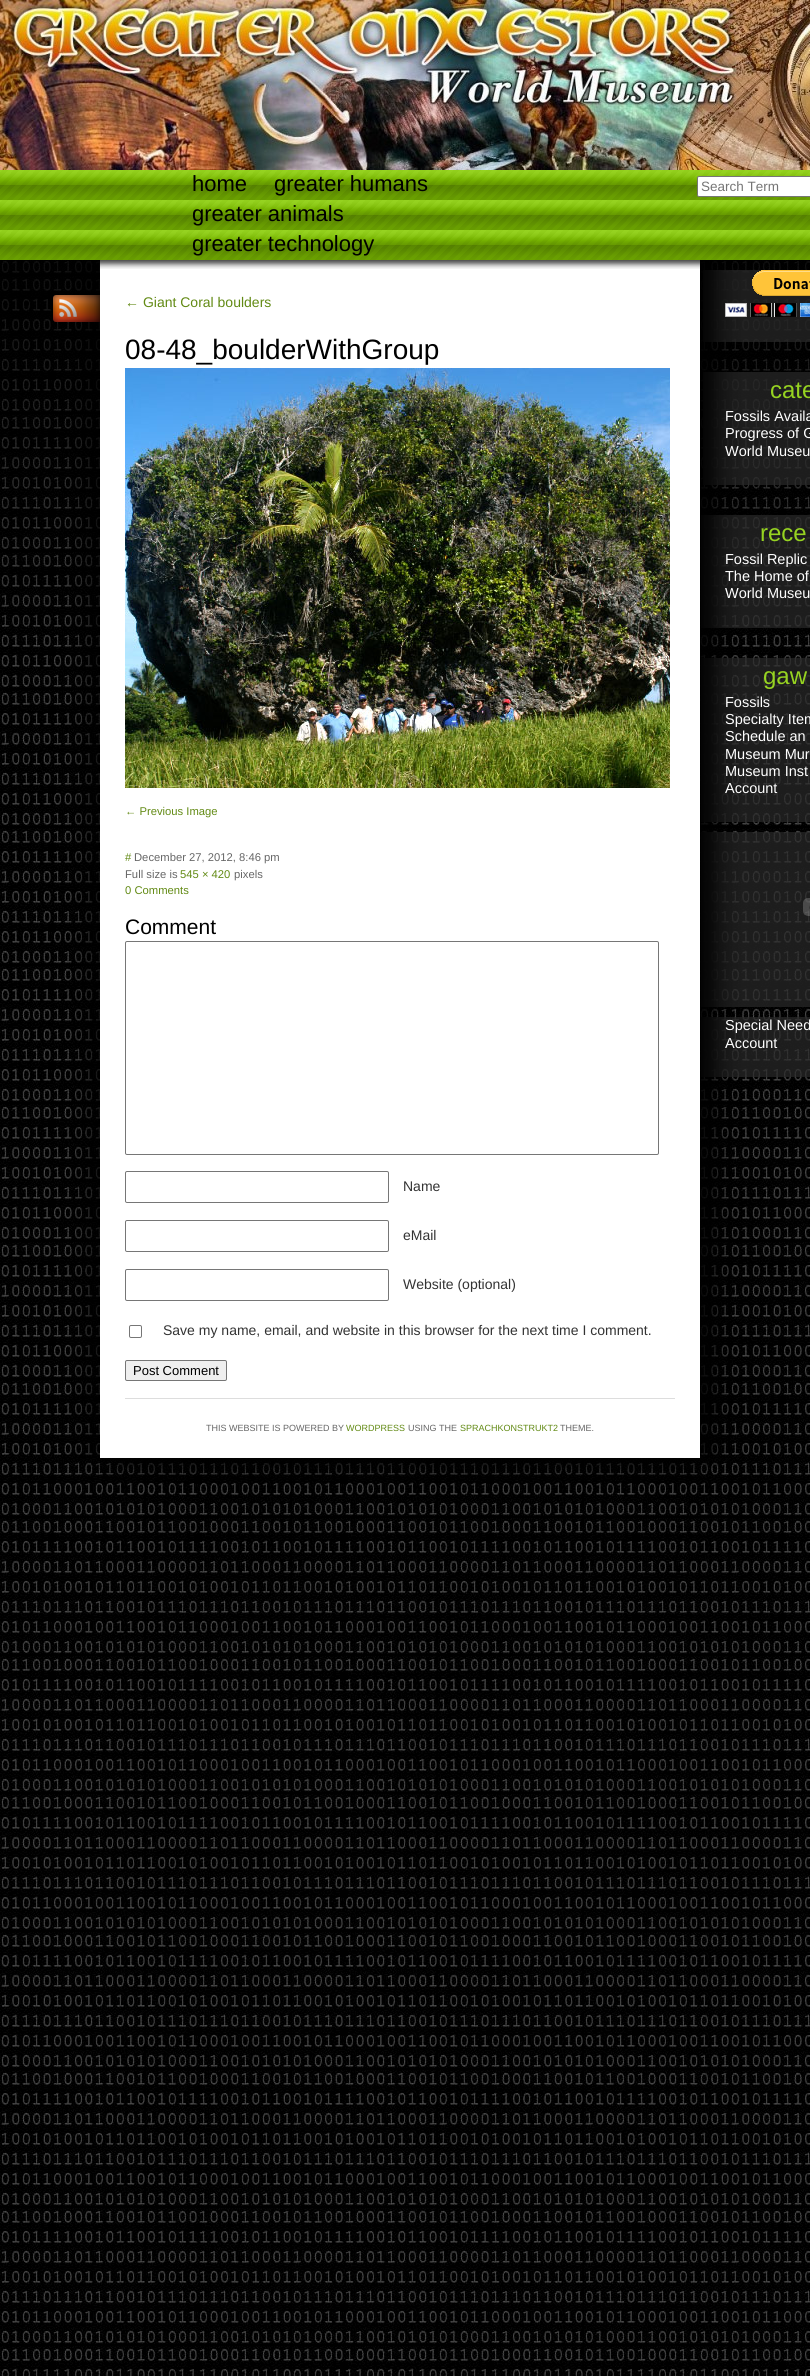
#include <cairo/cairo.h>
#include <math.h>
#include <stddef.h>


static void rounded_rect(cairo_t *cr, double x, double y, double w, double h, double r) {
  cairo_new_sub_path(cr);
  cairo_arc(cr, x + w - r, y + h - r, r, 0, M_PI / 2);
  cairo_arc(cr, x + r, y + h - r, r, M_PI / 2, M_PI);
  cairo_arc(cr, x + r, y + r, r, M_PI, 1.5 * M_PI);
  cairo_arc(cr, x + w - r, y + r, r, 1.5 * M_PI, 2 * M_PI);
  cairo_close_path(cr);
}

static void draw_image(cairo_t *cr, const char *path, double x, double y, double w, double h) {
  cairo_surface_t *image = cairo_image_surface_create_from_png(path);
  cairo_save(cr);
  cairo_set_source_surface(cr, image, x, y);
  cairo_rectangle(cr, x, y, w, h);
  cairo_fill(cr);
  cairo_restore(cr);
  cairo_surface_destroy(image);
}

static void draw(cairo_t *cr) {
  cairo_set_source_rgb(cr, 1, 1, 1);
  cairo_paint(cr);
  draw_image(cr, "images/1.png", 0, 626, 810, 1750);
  draw_image(cr, "images/2.png", 0, 260, 810, 366);
  draw_image(cr, "images/3.png", 0, 170, 810, 90);
  draw_image(cr, "images/4.png", 0, 0, 810, 170);
  cairo_set_source_rgb(cr, 1, 1, 1);
  rounded_rect(cr, 697.5, 176.5, 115, 20, 1.5);
  cairo_fill_preserve(cr);
  cairo_set_source_rgb(cr, 118 / 255.0, 118 / 255.0, 118 / 255.0);
  cairo_set_line_width(cr, 1);
  cairo_stroke(cr);
  draw_image(cr, "images/5.png", 67, 260, 669, 1164);
  cairo_set_source_rgb(cr, 0, 0, 0);
  cairo_arc(cr, 26.5, 303.5, 2.5, 0, 2 * M_PI);
  cairo_fill(cr);
  draw_image(cr, "images/6.png", 53, 295, 47, 27);
  draw_image(cr, "images/7.png", 100, 260, 600, 9);
  draw_image(cr, "images/8.png", 125, 368, 545, 420);
  rounded_rect(cr, 125.5, 941.5, 533, 213, 1.5);
  cairo_set_source_rgb(cr, 118 / 255.0, 118 / 255.0, 118 / 255.0);
  cairo_stroke(cr);
  rounded_rect(cr, 125.5, 1171.5, 263, 31, 1.5);
  cairo_stroke(cr);
  rounded_rect(cr, 125.5, 1220.5, 263, 31, 1.5);
  cairo_stroke(cr);
  rounded_rect(cr, 125.5, 1269.5, 263, 31, 1.5);
  cairo_stroke(cr);
  rounded_rect(cr, 129.5, 1325.5, 12, 12, 1.5);
  cairo_stroke(cr);
  cairo_set_source_rgb(cr, 239 / 255.0, 239 / 255.0, 239 / 255.0);
  rounded_rect(cr, 125.5, 1360.5, 101, 20, 1.5);
  cairo_fill_preserve(cr);
  cairo_set_source_rgb(cr, 118 / 255.0, 118 / 255.0, 118 / 255.0);
  cairo_stroke(cr);
  cairo_set_source_rgb(cr, 221 / 255.0, 221 / 255.0, 221 / 255.0);
  cairo_rectangle(cr, 125, 1398, 550, 1);
  cairo_fill(cr);
  draw_image(cr, "images/9.png", 703, 270, 107, 72);
  draw_image(cr, "images/10.png", 725, 270, 85, 47);
  draw_image(cr, "images/11.png", 703, 372, 107, 113);
  draw_image(cr, "images/12.png", 701, 515, 109, 113);
  draw_image(cr, "images/13.png", 701, 658, 109, 164);
  draw_image(cr, "images/14.png", 701, 832, 109, 175);
  draw_image(cr, "images/15.png", 803, 898, 7, 18);
  draw_image(cr, "images/16.png", 701, 1017, 109, 60);
  draw_image(cr, "images/17.png", 68, 1424, 666, 61);
  cairo_select_font_face(cr, "Liberation Sans", CAIRO_FONT_SLANT_NORMAL, CAIRO_FONT_WEIGHT_NORMAL);
  cairo_set_font_size(cr, 22);
  cairo_set_source_rgb(cr, 0, 0, 0);
  cairo_move_to(cr, 192, 191);
  cairo_show_text(cr, "home");
  cairo_move_to(cr, 274, 191);
  cairo_show_text(cr, "greater humans");
  cairo_move_to(cr, 192, 221);
  cairo_show_text(cr, "greater animals");
  cairo_move_to(cr, 192, 251);
  cairo_show_text(cr, "greater technology");
  cairo_set_font_size(cr, 13.5);
  cairo_set_source_rgb(cr, 117 / 255.0, 117 / 255.0, 117 / 255.0);
  cairo_move_to(cr, 701, 191);
  cairo_show_text(cr, "Search Term");
  cairo_set_font_size(cr, 14);
  cairo_set_source_rgb(cr, 98 / 255.0, 138 / 255.0, 20 / 255.0);
  cairo_move_to(cr, 125, 307);
  cairo_show_text(cr, "← Giant Coral boulders");
  cairo_set_font_size(cr, 28);
  cairo_set_source_rgb(cr, 0, 0, 0);
  cairo_move_to(cr, 125, 359);
  cairo_show_text(cr, "08-48_boulderWithGroup");
  cairo_set_font_size(cr, 11.25);
  cairo_set_source_rgb(cr, 98 / 255.0, 138 / 255.0, 20 / 255.0);
  cairo_move_to(cr, 125, 815);
  cairo_show_text(cr, "← Previous Image");
  cairo_move_to(cr, 125, 861);
  cairo_show_text(cr, "#");
  cairo_set_source_rgb(cr, 102 / 255.0, 102 / 255.0, 102 / 255.0);
  cairo_move_to(cr, 134, 861);
  cairo_show_text(cr, "December 27, 2012, 8:46 pm");
  cairo_move_to(cr, 125, 878);
  cairo_show_text(cr, "Full size is");
  cairo_set_source_rgb(cr, 98 / 255.0, 138 / 255.0, 20 / 255.0);
  cairo_move_to(cr, 180, 878);
  cairo_show_text(cr, "545 × 420");
  cairo_set_source_rgb(cr, 102 / 255.0, 102 / 255.0, 102 / 255.0);
  cairo_move_to(cr, 234, 878);
  cairo_show_text(cr, "pixels");
  cairo_set_source_rgb(cr, 98 / 255.0, 138 / 255.0, 20 / 255.0);
  cairo_move_to(cr, 125, 894);
  cairo_show_text(cr, "0 Comments");
  cairo_set_font_size(cr, 21);
  cairo_set_source_rgb(cr, 0, 0, 0);
  cairo_move_to(cr, 125, 934);
  cairo_show_text(cr, "Comment");
  cairo_set_font_size(cr, 14);
  cairo_set_source_rgb(cr, 51 / 255.0, 51 / 255.0, 51 / 255.0);
  cairo_move_to(cr, 403, 1191);
  cairo_show_text(cr, "Name");
  cairo_move_to(cr, 403, 1240);
  cairo_show_text(cr, "eMail");
  cairo_move_to(cr, 403, 1289);
  cairo_show_text(cr, "Website (optional)");
  cairo_move_to(cr, 163, 1335);
  cairo_show_text(cr, "Save my name, email, and website in this browser for the next time I comment.");
  cairo_set_font_size(cr, 13);
  cairo_set_source_rgb(cr, 0, 0, 0);
  cairo_move_to(cr, 133, 1375);
  cairo_show_text(cr, "Post Comment");
  cairo_set_font_size(cr, 24);
  cairo_set_source_rgb(cr, 150 / 255.0, 211 / 255.0, 33 / 255.0);
  cairo_move_to(cr, 770, 398);
  cairo_show_text(cr, "cate");
  cairo_set_font_size(cr, 14.5);
  cairo_set_source_rgb(cr, 1, 1, 1);
  cairo_move_to(cr, 725, 421);
  cairo_show_text(cr, "Fossils Availa");
  cairo_move_to(cr, 725, 438);
  cairo_show_text(cr, "Progress of G");
  cairo_move_to(cr, 725, 456);
  cairo_show_text(cr, "World Museu");
  cairo_set_font_size(cr, 24);
  cairo_set_source_rgb(cr, 150 / 255.0, 211 / 255.0, 33 / 255.0);
  cairo_move_to(cr, 760, 541);
  cairo_show_text(cr, "rece");
  cairo_set_font_size(cr, 14.5);
  cairo_set_source_rgb(cr, 1, 1, 1);
  cairo_move_to(cr, 725, 564);
  cairo_show_text(cr, "Fossil Replic");
  cairo_move_to(cr, 725, 581);
  cairo_show_text(cr, "The Home of");
  cairo_move_to(cr, 725, 598);
  cairo_show_text(cr, "World Museu");
  cairo_set_font_size(cr, 24);
  cairo_set_source_rgb(cr, 150 / 255.0, 211 / 255.0, 33 / 255.0);
  cairo_move_to(cr, 763, 684);
  cairo_show_text(cr, "gaw");
  cairo_set_font_size(cr, 14.5);
  cairo_set_source_rgb(cr, 1, 1, 1);
  cairo_move_to(cr, 725, 707);
  cairo_show_text(cr, "Fossils");
  cairo_move_to(cr, 725, 724);
  cairo_show_text(cr, "Specialty Item");
  cairo_move_to(cr, 725, 741);
  cairo_show_text(cr, "Schedule an");
  cairo_move_to(cr, 725, 759);
  cairo_show_text(cr, "Museum Mur");
  cairo_move_to(cr, 725, 776);
  cairo_show_text(cr, "Museum Inst");
  cairo_move_to(cr, 725, 793);
  cairo_show_text(cr, "Account");
  cairo_move_to(cr, 725, 1030);
  cairo_show_text(cr, "Special Need");
  cairo_move_to(cr, 725, 1048);
  cairo_show_text(cr, "Account");
  cairo_set_font_size(cr, 9);
  cairo_set_source_rgb(cr, 102 / 255.0, 102 / 255.0, 102 / 255.0);
  cairo_move_to(cr, 206, 1431);
  cairo_show_text(cr, "THIS WEBSITE IS POWERED BY");
  cairo_set_source_rgb(cr, 98 / 255.0, 138 / 255.0, 20 / 255.0);
  cairo_move_to(cr, 346, 1431);
  cairo_show_text(cr, "WORDPRESS");
  cairo_set_source_rgb(cr, 102 / 255.0, 102 / 255.0, 102 / 255.0);
  cairo_move_to(cr, 408, 1431);
  cairo_show_text(cr, "USING THE");
  cairo_set_source_rgb(cr, 98 / 255.0, 138 / 255.0, 20 / 255.0);
  cairo_move_to(cr, 460, 1431);
  cairo_show_text(cr, "SPRACHKONSTRUKT2");
  cairo_set_source_rgb(cr, 102 / 255.0, 102 / 255.0, 102 / 255.0);
  cairo_move_to(cr, 560, 1431);
  cairo_show_text(cr, "THEME.");
}

int main(void) {
  cairo_surface_t *surface = cairo_image_surface_create(CAIRO_FORMAT_RGB24, 810, 2376);
  cairo_t *cr = cairo_create(surface);
  cairo_font_options_t *options = cairo_font_options_create();
  cairo_font_options_set_hint_metrics(options, CAIRO_HINT_METRICS_OFF);
  cairo_font_options_set_hint_style(options, CAIRO_HINT_STYLE_NONE);
  cairo_set_font_options(cr, options);
  cairo_set_miter_limit(cr, 4);
  draw(cr);
  cairo_surface_write_to_png(surface, "out.png");
  cairo_font_options_destroy(options);
  cairo_destroy(cr);
  cairo_surface_destroy(surface);
  return 0;
}
